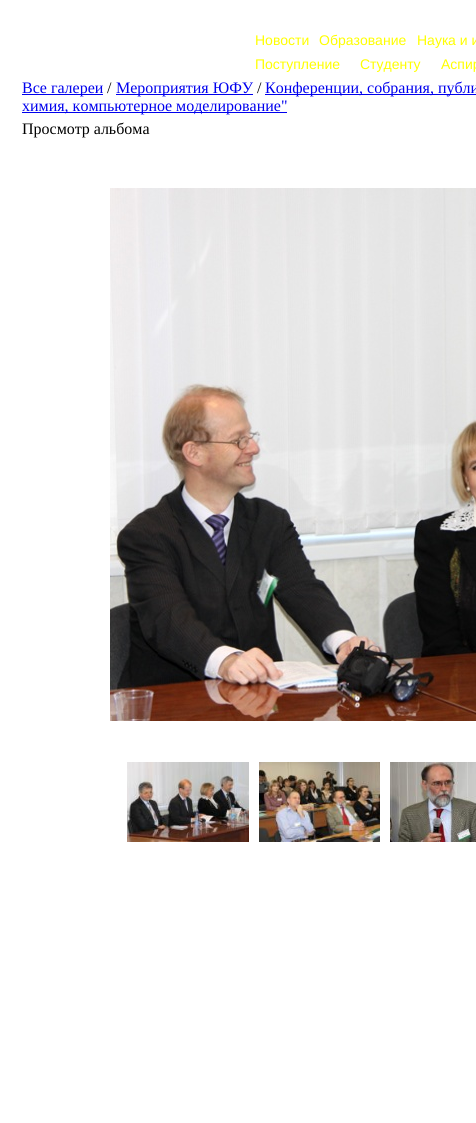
#include <cairo/cairo.h>
#include <math.h>
#include <stddef.h>


static void draw_image(cairo_t *cr, const char *path, double x, double y, double w, double h) {
  cairo_surface_t *image = cairo_image_surface_create_from_png(path);
  cairo_save(cr);
  cairo_set_source_surface(cr, image, x, y);
  cairo_rectangle(cr, x, y, w, h);
  cairo_fill(cr);
  cairo_restore(cr);
  cairo_surface_destroy(image);
}

static void draw(cairo_t *cr) {
  cairo_set_source_rgb(cr, 1, 1, 1);
  cairo_paint(cr);
  cairo_set_source_rgb(cr, 0, 0, 238 / 255.0);
  cairo_rectangle(cr, 22, 94, 81, 1);
  cairo_fill(cr);
  cairo_rectangle(cr, 116, 94, 137, 1);
  cairo_fill(cr);
  cairo_rectangle(cr, 265, 94, 211, 1);
  cairo_fill(cr);
  cairo_rectangle(cr, 22, 112, 265, 1);
  cairo_fill(cr);
  draw_image(cr, "images/1.png", 110, 188, 366, 533);
  draw_image(cr, "images/2.png", 127, 762, 122, 80);
  draw_image(cr, "images/3.png", 259, 762, 121, 80);
  draw_image(cr, "images/4.png", 390, 762, 86, 80);
  cairo_select_font_face(cr, "Liberation Sans", CAIRO_FONT_SLANT_NORMAL, CAIRO_FONT_WEIGHT_NORMAL);
  cairo_set_font_size(cr, 14);
  cairo_set_source_rgb(cr, 1, 1, 0);
  cairo_move_to(cr, 255, 45);
  cairo_show_text(cr, "Новости");
  cairo_move_to(cr, 319, 45);
  cairo_show_text(cr, "Образование");
  cairo_move_to(cr, 417, 45);
  cairo_show_text(cr, "Наука и и");
  cairo_move_to(cr, 255, 69);
  cairo_show_text(cr, "Поступление");
  cairo_move_to(cr, 360, 69);
  cairo_show_text(cr, "Студенту");
  cairo_move_to(cr, 441, 69);
  cairo_show_text(cr, "Аспир");
  cairo_select_font_face(cr, "Liberation Serif", CAIRO_FONT_SLANT_NORMAL, CAIRO_FONT_WEIGHT_NORMAL);
  cairo_set_font_size(cr, 16);
  cairo_set_source_rgb(cr, 0, 0, 238 / 255.0);
  cairo_move_to(cr, 22, 93);
  cairo_show_text(cr, "Все галереи");
  cairo_set_source_rgb(cr, 0, 0, 0);
  cairo_move_to(cr, 107, 93);
  cairo_show_text(cr, "/");
  cairo_set_source_rgb(cr, 0, 0, 238 / 255.0);
  cairo_move_to(cr, 116, 93);
  cairo_show_text(cr, "Мероприятия ЮФУ");
  cairo_set_source_rgb(cr, 0, 0, 0);
  cairo_move_to(cr, 257, 93);
  cairo_show_text(cr, "/");
  cairo_set_source_rgb(cr, 0, 0, 238 / 255.0);
  cairo_move_to(cr, 265, 93);
  cairo_show_text(cr, "Конференции, собрания, публи");
  cairo_move_to(cr, 22, 111);
  cairo_show_text(cr, "химия, компьютерное моделирование\"");
  cairo_set_source_rgb(cr, 0, 0, 0);
  cairo_move_to(cr, 22, 134);
  cairo_show_text(cr, "Просмотр альбома");
}

int main(void) {
  cairo_surface_t *surface = cairo_image_surface_create(CAIRO_FORMAT_RGB24, 476, 1123);
  cairo_t *cr = cairo_create(surface);
  cairo_font_options_t *options = cairo_font_options_create();
  cairo_font_options_set_hint_metrics(options, CAIRO_HINT_METRICS_OFF);
  cairo_font_options_set_hint_style(options, CAIRO_HINT_STYLE_NONE);
  cairo_set_font_options(cr, options);
  cairo_set_miter_limit(cr, 4);
  draw(cr);
  cairo_surface_write_to_png(surface, "out.png");
  cairo_font_options_destroy(options);
  cairo_destroy(cr);
  cairo_surface_destroy(surface);
  return 0;
}
